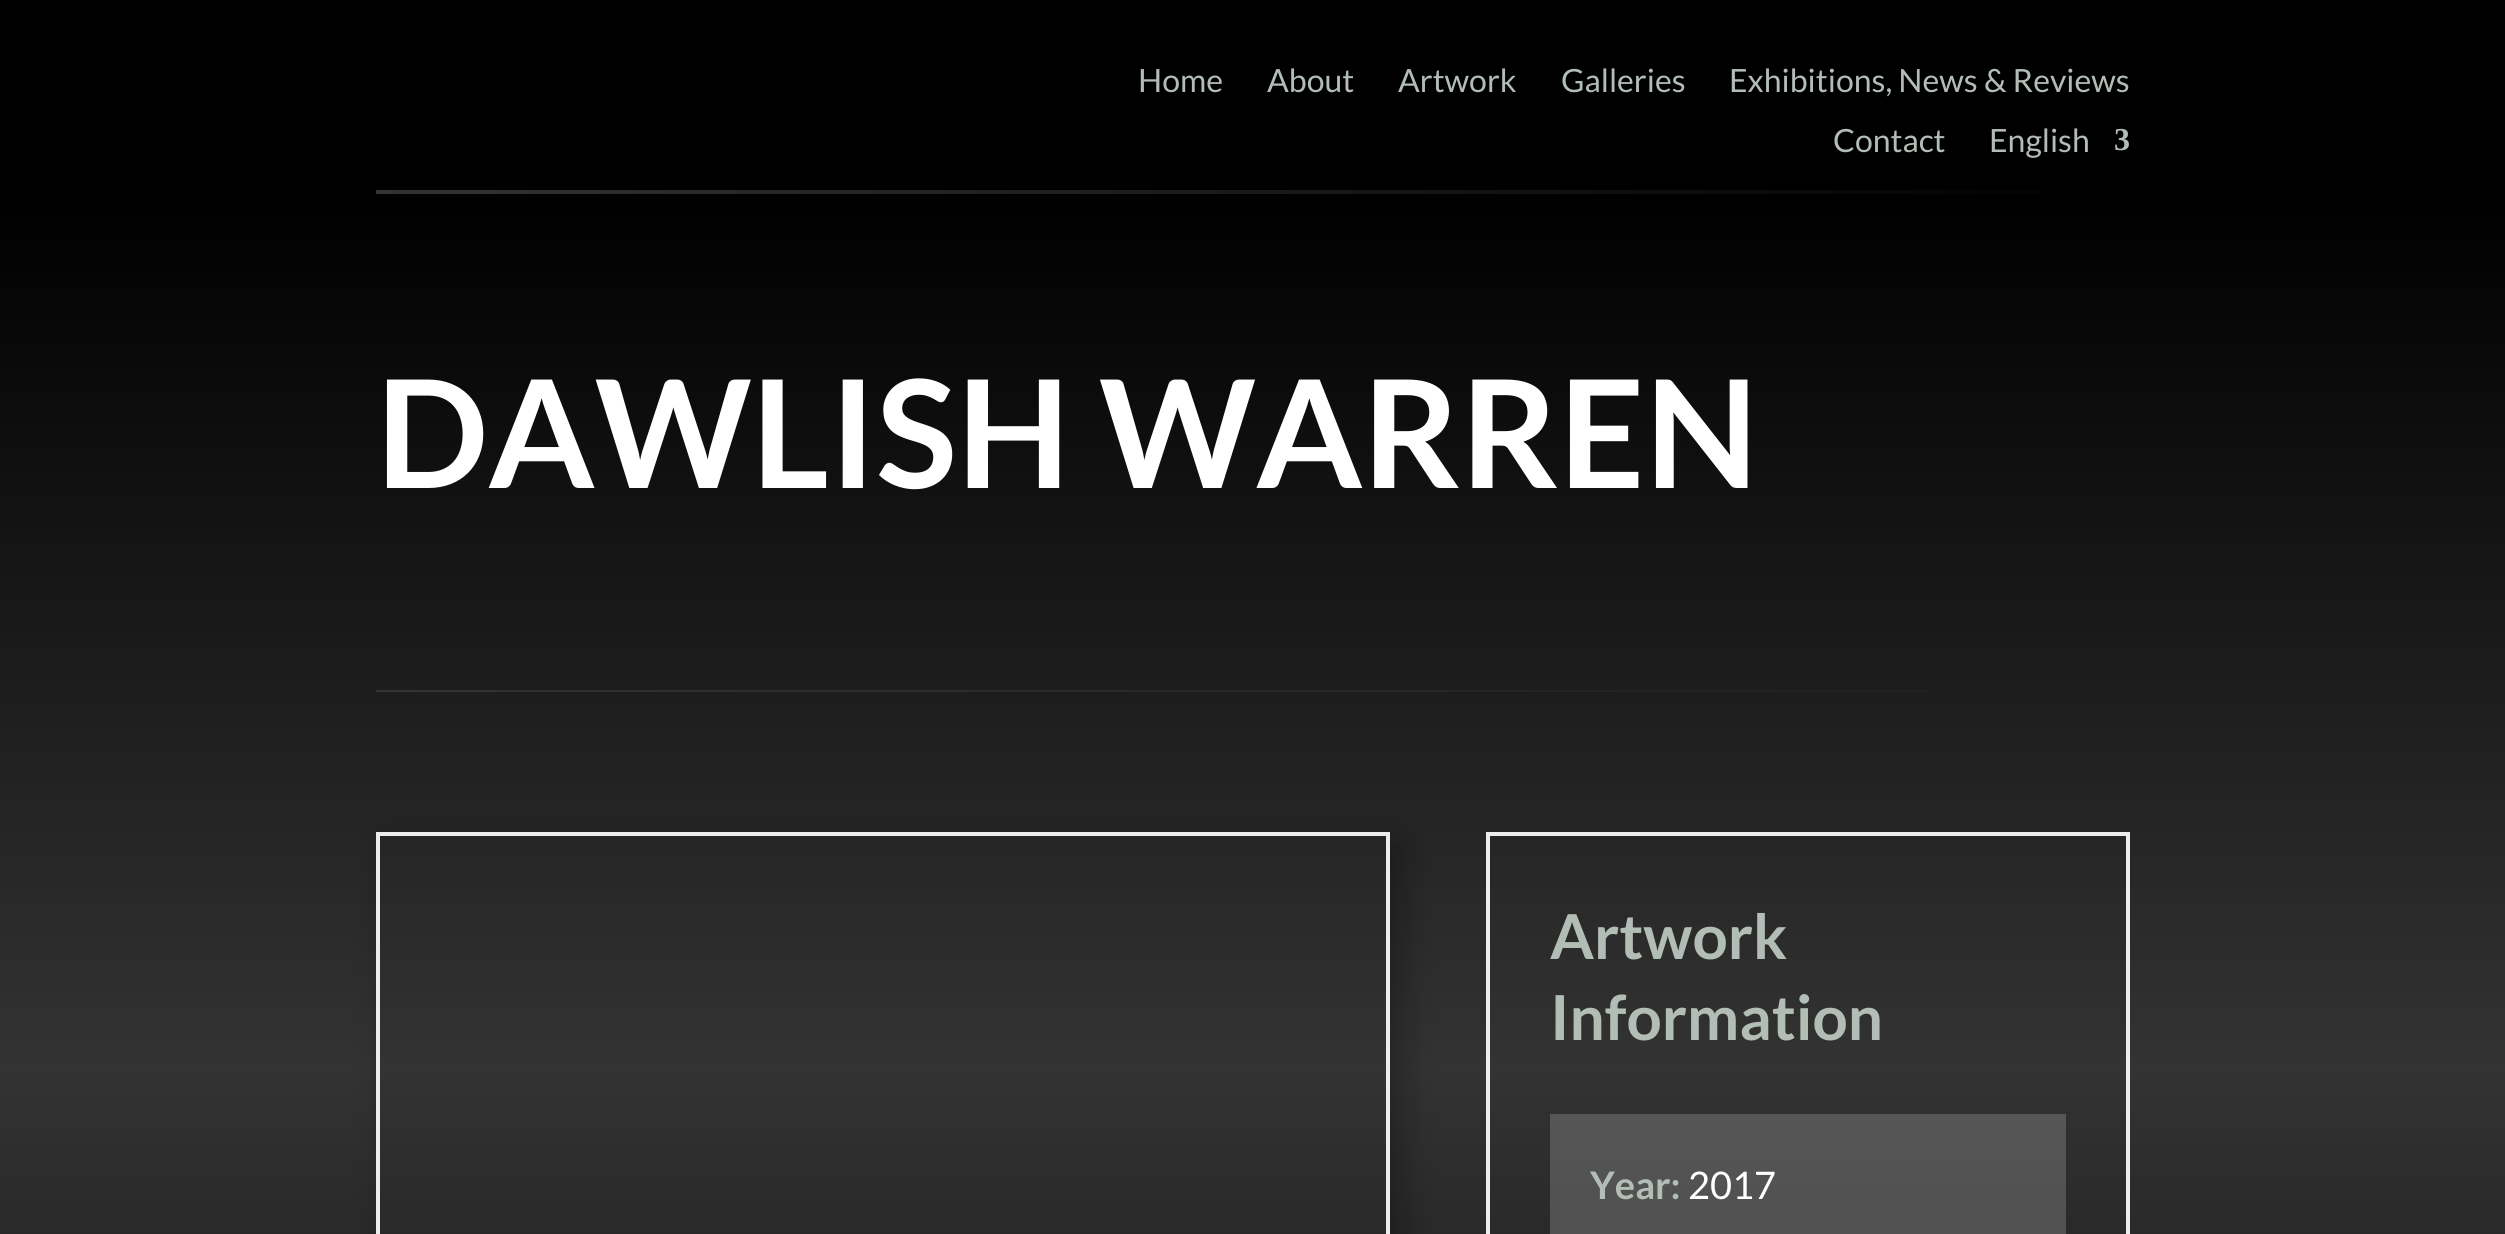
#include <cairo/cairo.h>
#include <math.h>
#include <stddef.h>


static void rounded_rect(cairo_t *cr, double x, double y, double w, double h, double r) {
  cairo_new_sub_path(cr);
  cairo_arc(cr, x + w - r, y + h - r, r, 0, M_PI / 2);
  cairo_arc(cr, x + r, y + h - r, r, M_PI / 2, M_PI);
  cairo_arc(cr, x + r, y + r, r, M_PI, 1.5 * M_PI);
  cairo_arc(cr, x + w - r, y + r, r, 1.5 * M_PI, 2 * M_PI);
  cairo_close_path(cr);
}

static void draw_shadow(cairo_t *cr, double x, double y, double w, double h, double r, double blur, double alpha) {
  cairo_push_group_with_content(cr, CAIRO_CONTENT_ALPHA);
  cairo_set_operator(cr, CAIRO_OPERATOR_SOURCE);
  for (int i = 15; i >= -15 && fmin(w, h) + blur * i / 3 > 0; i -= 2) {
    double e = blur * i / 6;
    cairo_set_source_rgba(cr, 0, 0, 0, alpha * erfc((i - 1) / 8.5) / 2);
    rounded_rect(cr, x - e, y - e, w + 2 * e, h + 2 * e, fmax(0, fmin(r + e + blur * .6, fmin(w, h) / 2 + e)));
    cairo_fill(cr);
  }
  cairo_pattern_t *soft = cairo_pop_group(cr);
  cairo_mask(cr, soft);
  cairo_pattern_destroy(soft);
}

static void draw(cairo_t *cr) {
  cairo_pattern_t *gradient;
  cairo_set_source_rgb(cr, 1, 1, 1);
  cairo_paint(cr);
  cairo_set_source_rgb(cr, 0, 0, 0);
  cairo_rectangle(cr, 0, 0, 2505, 194);
  cairo_fill(cr);
  gradient = cairo_pattern_create_linear(376, 191, 2130, 191);
  cairo_pattern_add_color_stop_rgba(gradient, 0, 51 / 255.0, 51 / 255.0, 51 / 255.0, 1);
  cairo_pattern_add_color_stop_rgba(gradient, 1, 0, 0, 0, 1);
  cairo_set_source(cr, gradient);
  cairo_pattern_destroy(gradient);
  cairo_rectangle(cr, 376, 190, 1668, 2);
  cairo_fill(cr);
  gradient = cairo_pattern_create_linear(376, 193, 2130, 193);
  cairo_pattern_add_color_stop_rgba(gradient, 0, 51 / 255.0, 51 / 255.0, 51 / 255.0, 1);
  cairo_pattern_add_color_stop_rgba(gradient, 1, 0, 0, 0, 1);
  cairo_set_source(cr, gradient);
  cairo_pattern_destroy(gradient);
  cairo_rectangle(cr, 376, 192, 1668, 2);
  cairo_fill(cr);
  gradient = cairo_pattern_create_linear(1253, 194, 1253, 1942);
  cairo_pattern_add_color_stop_rgba(gradient, 0, 0, 0, 0, 1);
  cairo_pattern_add_color_stop_rgba(gradient, 0.5, 51 / 255.0, 51 / 255.0, 51 / 255.0, 1);
  cairo_pattern_add_color_stop_rgba(gradient, 1, 0, 0, 0, 1);
  cairo_set_source(cr, gradient);
  cairo_pattern_destroy(gradient);
  cairo_rectangle(cr, 0, 194, 2505, 1040);
  cairo_fill(cr);
  gradient = cairo_pattern_create_linear(1253, 194, 1253, 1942);
  cairo_pattern_add_color_stop_rgba(gradient, 0, 47 / 255.0, 47 / 255.0, 47 / 255.0, 1);
  cairo_pattern_add_color_stop_rgba(gradient, 0.5, 88 / 255.0, 88 / 255.0, 88 / 255.0, 1);
  cairo_pattern_add_color_stop_rgba(gradient, 1, 47 / 255.0, 47 / 255.0, 47 / 255.0, 1);
  cairo_set_source(cr, gradient);
  cairo_pattern_destroy(gradient);
  cairo_rectangle(cr, 1550, 1114, 516, 102);
  cairo_fill(cr);
  gradient = cairo_pattern_create_linear(376, 691, 2130, 691);
  cairo_pattern_add_color_stop_rgba(gradient, 0, 51 / 255.0, 51 / 255.0, 51 / 255.0, 1);
  cairo_pattern_add_color_stop_rgba(gradient, 1, 29 / 255.0, 29 / 255.0, 29 / 255.0, 1);
  cairo_set_source(cr, gradient);
  cairo_pattern_destroy(gradient);
  cairo_rectangle(cr, 376, 690, 1555, 2);
  cairo_fill(cr);
  cairo_save(cr);
  cairo_set_fill_rule(cr, CAIRO_FILL_RULE_EVEN_ODD);
  cairo_new_path(cr);
  cairo_move_to(cr, 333, 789);
  cairo_line_to(cr, 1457, 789);
  cairo_line_to(cr, 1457, 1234);
  cairo_line_to(cr, 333, 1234);
  cairo_close_path(cr);
  cairo_move_to(cr, 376, 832);
  cairo_line_to(cr, 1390, 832);
  cairo_line_to(cr, 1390, 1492);
  cairo_line_to(cr, 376, 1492);
  cairo_close_path(cr);
  cairo_clip(cr);
  cairo_set_source_rgb(cr, 0, 0, 0);
  draw_shadow(cr, 388, 844, 1014, 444, 0, 18, 0.3);
  cairo_restore(cr);
  cairo_rectangle(cr, 378, 834, 1010, 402);
  cairo_set_source_rgb(cr, 237 / 255.0, 237 / 255.0, 237 / 255.0);
  cairo_set_line_width(cr, 4);
  cairo_stroke(cr);
  cairo_rectangle(cr, 1488, 834, 640, 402);
  cairo_stroke(cr);
  cairo_set_source_rgb(cr, 81 / 255.0, 81 / 255.0, 81 / 255.0);
  cairo_rectangle(cr, 1550, 1216, 516, 18);
  cairo_fill(cr);
  cairo_select_font_face(cr, "Lato", CAIRO_FONT_SLANT_NORMAL, CAIRO_FONT_WEIGHT_NORMAL);
  cairo_set_font_size(cr, 32);
  cairo_set_source_rgb(cr, 178 / 255.0, 190 / 255.0, 181 / 255.0);
  cairo_move_to(cr, 1138, 92);
  cairo_show_text(cr, "Home");
  cairo_move_to(cr, 1267, 92);
  cairo_show_text(cr, "About");
  cairo_move_to(cr, 1398, 92);
  cairo_show_text(cr, "Artwork");
  cairo_move_to(cr, 1561, 92);
  cairo_show_text(cr, "Galleries");
  cairo_move_to(cr, 1729, 92);
  cairo_show_text(cr, "Exhibitions, News & Reviews");
  cairo_move_to(cr, 1833, 152);
  cairo_show_text(cr, "Contact");
  cairo_move_to(cr, 1989, 152);
  cairo_show_text(cr, "English");
  cairo_select_font_face(cr, "Liberation Serif", CAIRO_FONT_SLANT_NORMAL, CAIRO_FONT_WEIGHT_BOLD);
  cairo_move_to(cr, 2114, 150);
  cairo_show_text(cr, "3");
  cairo_select_font_face(cr, "Lato", CAIRO_FONT_SLANT_NORMAL, CAIRO_FONT_WEIGHT_BOLD);
  cairo_set_font_size(cr, 150);
  cairo_set_source_rgb(cr, 1, 1, 1);
  cairo_move_to(cr, 376, 488);
  cairo_show_text(cr, "DAWLISH WARREN");
  cairo_set_font_size(cr, 62);
  cairo_set_source_rgb(cr, 178 / 255.0, 190 / 255.0, 181 / 255.0);
  cairo_move_to(cr, 1550, 959);
  cairo_show_text(cr, "Artwork");
  cairo_move_to(cr, 1550, 1040);
  cairo_show_text(cr, "Information");
  cairo_set_font_size(cr, 38);
  cairo_move_to(cr, 1590, 1199);
  cairo_show_text(cr, "Year:");
  cairo_select_font_face(cr, "Lato", CAIRO_FONT_SLANT_NORMAL, CAIRO_FONT_WEIGHT_NORMAL);
  cairo_set_source_rgb(cr, 1, 1, 1);
  cairo_move_to(cr, 1688, 1199);
  cairo_show_text(cr, "2017");
}

int main(void) {
  cairo_surface_t *surface = cairo_image_surface_create(CAIRO_FORMAT_RGB24, 2505, 1234);
  cairo_t *cr = cairo_create(surface);
  cairo_font_options_t *options = cairo_font_options_create();
  cairo_font_options_set_hint_metrics(options, CAIRO_HINT_METRICS_OFF);
  cairo_font_options_set_hint_style(options, CAIRO_HINT_STYLE_NONE);
  cairo_set_font_options(cr, options);
  cairo_set_miter_limit(cr, 4);
  draw(cr);
  cairo_surface_write_to_png(surface, "out.png");
  cairo_font_options_destroy(options);
  cairo_destroy(cr);
  cairo_surface_destroy(surface);
  return 0;
}
